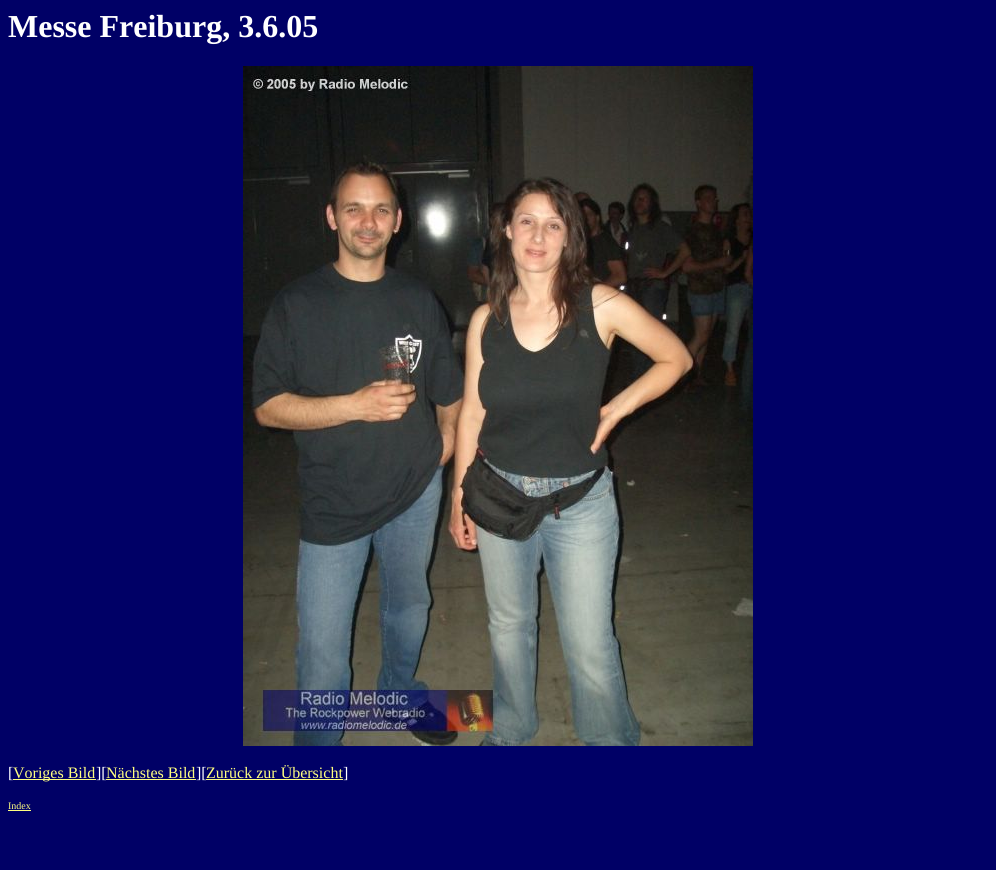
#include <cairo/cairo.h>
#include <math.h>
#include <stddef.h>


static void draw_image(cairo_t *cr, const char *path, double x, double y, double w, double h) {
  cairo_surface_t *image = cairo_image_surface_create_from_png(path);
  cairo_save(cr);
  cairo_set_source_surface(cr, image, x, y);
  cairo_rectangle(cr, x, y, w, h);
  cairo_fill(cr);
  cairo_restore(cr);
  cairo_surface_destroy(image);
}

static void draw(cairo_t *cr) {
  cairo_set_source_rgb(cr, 0, 0, 102 / 255.0);
  cairo_paint(cr);
  draw_image(cr, "images/1.png", 243, 66, 510, 680);
  cairo_set_source_rgb(cr, 1, 1, 128 / 255.0);
  cairo_rectangle(cr, 13, 779, 83, 1);
  cairo_fill(cr);
  cairo_rectangle(cr, 106, 779, 90, 1);
  cairo_fill(cr);
  cairo_rectangle(cr, 206, 779, 137, 1);
  cairo_fill(cr);
  cairo_rectangle(cr, 8, 810, 23, 1);
  cairo_fill(cr);
  cairo_select_font_face(cr, "Liberation Serif", CAIRO_FONT_SLANT_NORMAL, CAIRO_FONT_WEIGHT_BOLD);
  cairo_set_font_size(cr, 32);
  cairo_set_source_rgb(cr, 1, 1, 1);
  cairo_move_to(cr, 8, 37);
  cairo_show_text(cr, "Messe Freiburg, 3.6.05");
  cairo_select_font_face(cr, "Liberation Serif", CAIRO_FONT_SLANT_NORMAL, CAIRO_FONT_WEIGHT_NORMAL);
  cairo_set_font_size(cr, 16);
  cairo_move_to(cr, 8, 778);
  cairo_show_text(cr, "[");
  cairo_set_source_rgb(cr, 1, 1, 128 / 255.0);
  cairo_move_to(cr, 13, 778);
  cairo_show_text(cr, "Voriges Bild");
  cairo_set_source_rgb(cr, 1, 1, 1);
  cairo_move_to(cr, 96, 778);
  cairo_show_text(cr, "][");
  cairo_set_source_rgb(cr, 1, 1, 128 / 255.0);
  cairo_move_to(cr, 106, 778);
  cairo_show_text(cr, "Nächstes Bild");
  cairo_set_source_rgb(cr, 1, 1, 1);
  cairo_move_to(cr, 196, 778);
  cairo_show_text(cr, "][");
  cairo_set_source_rgb(cr, 1, 1, 128 / 255.0);
  cairo_move_to(cr, 206, 778);
  cairo_show_text(cr, "Zurück zur Übersicht");
  cairo_set_source_rgb(cr, 1, 1, 1);
  cairo_move_to(cr, 343, 778);
  cairo_show_text(cr, "]");
  cairo_set_font_size(cr, 10);
  cairo_set_source_rgb(cr, 1, 1, 128 / 255.0);
  cairo_move_to(cr, 8, 809);
  cairo_show_text(cr, "Index");
}

int main(void) {
  cairo_surface_t *surface = cairo_image_surface_create(CAIRO_FORMAT_RGB24, 996, 870);
  cairo_t *cr = cairo_create(surface);
  cairo_font_options_t *options = cairo_font_options_create();
  cairo_font_options_set_hint_metrics(options, CAIRO_HINT_METRICS_OFF);
  cairo_font_options_set_hint_style(options, CAIRO_HINT_STYLE_NONE);
  cairo_set_font_options(cr, options);
  cairo_set_miter_limit(cr, 4);
  draw(cr);
  cairo_surface_write_to_png(surface, "out.png");
  cairo_font_options_destroy(options);
  cairo_destroy(cr);
  cairo_surface_destroy(surface);
  return 0;
}
